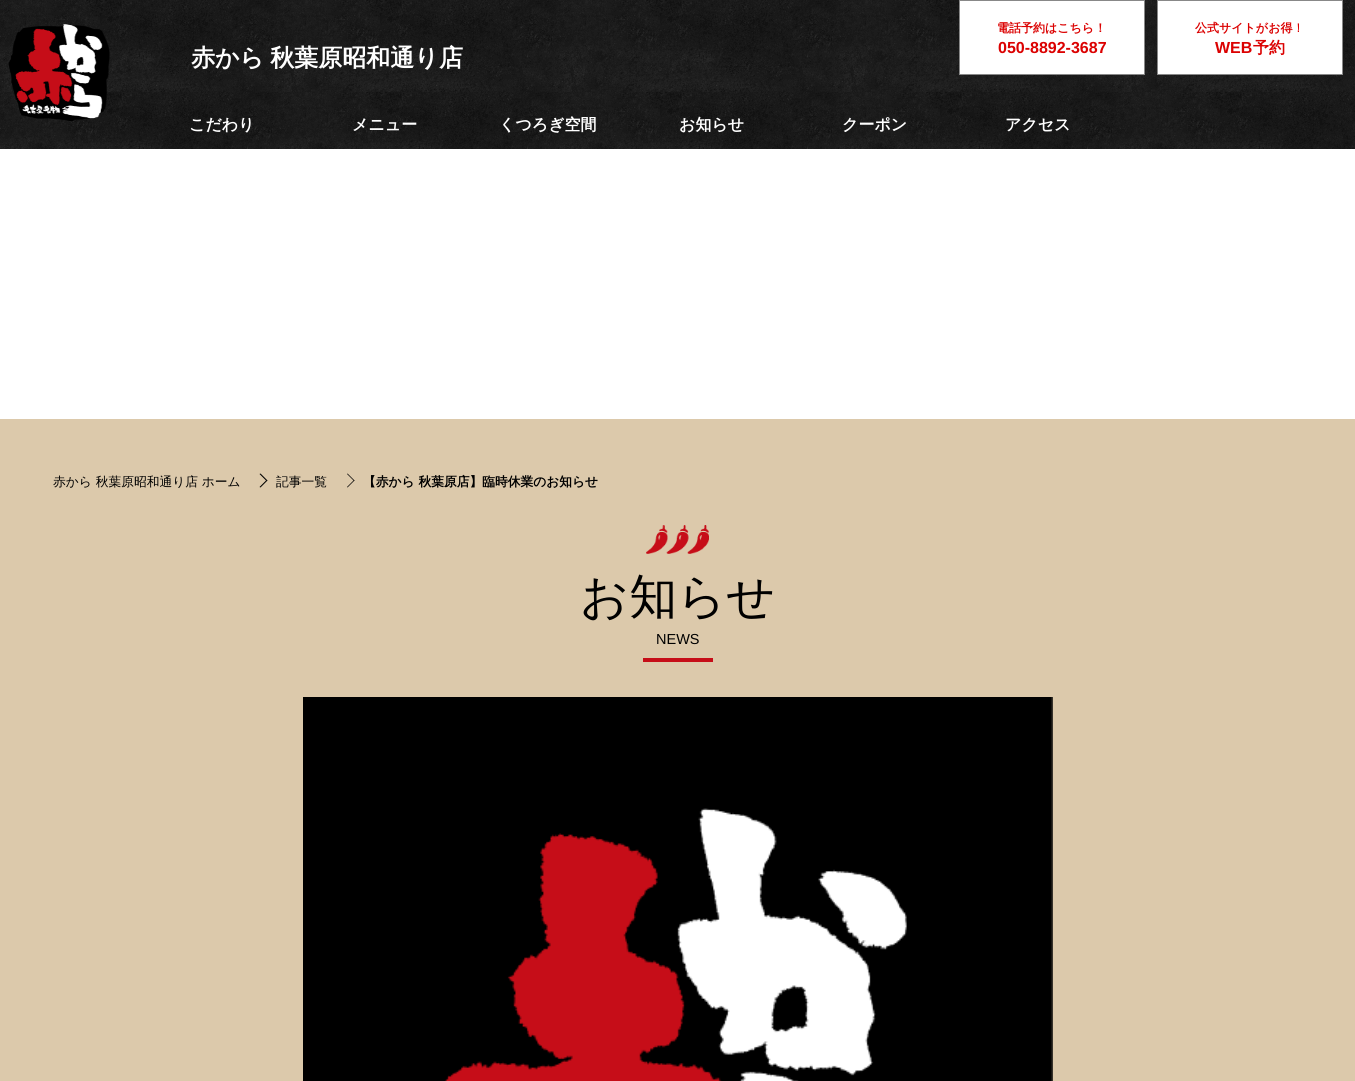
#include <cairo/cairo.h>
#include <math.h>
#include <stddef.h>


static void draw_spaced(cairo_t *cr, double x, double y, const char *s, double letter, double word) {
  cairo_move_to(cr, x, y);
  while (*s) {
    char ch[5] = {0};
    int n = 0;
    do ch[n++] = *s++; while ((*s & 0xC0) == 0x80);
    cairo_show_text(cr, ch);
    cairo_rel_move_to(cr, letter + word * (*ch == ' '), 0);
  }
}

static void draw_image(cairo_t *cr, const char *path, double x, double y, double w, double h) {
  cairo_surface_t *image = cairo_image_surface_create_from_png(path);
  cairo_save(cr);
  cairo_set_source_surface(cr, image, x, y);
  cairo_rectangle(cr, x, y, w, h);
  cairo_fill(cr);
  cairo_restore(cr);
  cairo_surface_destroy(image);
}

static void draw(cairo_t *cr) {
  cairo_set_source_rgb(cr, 1, 1, 1);
  cairo_paint(cr);
  draw_image(cr, "images/1.png", 0, 0, 1355, 92);
  draw_image(cr, "images/3.png", 0, 92, 1355, 57);
  draw_image(cr, "images/2.png", 8, 24, 102, 97);
  cairo_set_source_rgb(cr, 1, 1, 1);
  cairo_rectangle(cr, 959.5, 0.5, 185, 74);
  cairo_fill_preserve(cr);
  cairo_set_source_rgb(cr, 136 / 255.0, 136 / 255.0, 136 / 255.0);
  cairo_set_line_width(cr, 1);
  cairo_stroke(cr);
  cairo_set_source_rgb(cr, 1, 1, 1);
  cairo_rectangle(cr, 1157.5, 0.5, 185, 74);
  cairo_fill_preserve(cr);
  cairo_set_source_rgb(cr, 136 / 255.0, 136 / 255.0, 136 / 255.0);
  cairo_stroke(cr);
  cairo_set_source_rgb(cr, 220 / 255.0, 201 / 255.0, 171 / 255.0);
  cairo_rectangle(cr, 0, 419, 1355, 662);
  cairo_fill(cr);
  cairo_set_source_rgb(cr, 0, 0, 0);
  cairo_new_path(cr);
  cairo_move_to(cr, 260.5, 473.5);
  cairo_line_to(cr, 267.5, 480.5);
  cairo_line_to(cr, 266.5, 481);
  cairo_line_to(cr, 259.5, 474);
  cairo_close_path(cr);
  cairo_fill(cr);
  cairo_new_path(cr);
  cairo_move_to(cr, 266.5, 480);
  cairo_line_to(cr, 267.5, 480.5);
  cairo_line_to(cr, 260.5, 487.5);
  cairo_line_to(cr, 259.5, 487);
  cairo_close_path(cr);
  cairo_fill(cr);
  cairo_new_path(cr);
  cairo_move_to(cr, 347.5, 473.5);
  cairo_line_to(cr, 354.5, 480.5);
  cairo_line_to(cr, 354, 481);
  cairo_line_to(cr, 347, 474);
  cairo_close_path(cr);
  cairo_fill(cr);
  cairo_new_path(cr);
  cairo_move_to(cr, 354, 480);
  cairo_line_to(cr, 354.5, 480.5);
  cairo_line_to(cr, 347.5, 487.5);
  cairo_line_to(cr, 347, 487);
  cairo_close_path(cr);
  cairo_fill(cr);
  draw_image(cr, "images/4.png", 646, 525, 63, 29);
  cairo_set_source_rgb(cr, 198 / 255.0, 13 / 255.0, 24 / 255.0);
  cairo_rectangle(cr, 643, 658, 70, 4);
  cairo_fill(cr);
  draw_image(cr, "images/5.png", 303, 697, 750, 384);
  cairo_select_font_face(cr, "WenQuanYi Zen Hei", CAIRO_FONT_SLANT_NORMAL, CAIRO_FONT_WEIGHT_BOLD);
  cairo_set_font_size(cr, 24);
  cairo_set_source_rgb(cr, 1, 1, 1);
  draw_spaced(cr, 191, 66, "赤から 秋葉原昭和通り店", 0, -1);
  cairo_set_font_size(cr, 12);
  cairo_set_source_rgb(cr, 219 / 255.0, 1 / 255.0, 1 / 255.0);
  cairo_move_to(cr, 997, 32);
  cairo_show_text(cr, "電話予約はこちら！");
  cairo_select_font_face(cr, "Liberation Sans", CAIRO_FONT_SLANT_NORMAL, CAIRO_FONT_WEIGHT_BOLD);
  cairo_set_font_size(cr, 16);
  cairo_move_to(cr, 998, 53);
  cairo_show_text(cr, "050-8892-3687");
  cairo_select_font_face(cr, "WenQuanYi Zen Hei", CAIRO_FONT_SLANT_NORMAL, CAIRO_FONT_WEIGHT_BOLD);
  cairo_set_font_size(cr, 12);
  cairo_move_to(cr, 1195, 32);
  cairo_show_text(cr, "公式サイトがお得！");
  cairo_select_font_face(cr, "Liberation Sans", CAIRO_FONT_SLANT_NORMAL, CAIRO_FONT_WEIGHT_BOLD);
  cairo_set_font_size(cr, 16);
  cairo_move_to(cr, 1215, 53);
  cairo_show_text(cr, "WEB");
  cairo_select_font_face(cr, "WenQuanYi Zen Hei", CAIRO_FONT_SLANT_NORMAL, CAIRO_FONT_WEIGHT_BOLD);
  cairo_move_to(cr, 1253, 53);
  cairo_show_text(cr, "予約");
  cairo_set_source_rgb(cr, 1, 1, 1);
  cairo_move_to(cr, 189, 130);
  cairo_show_text(cr, "こだわり");
  cairo_move_to(cr, 352, 130);
  cairo_show_text(cr, "メニュー");
  cairo_move_to(cr, 499, 130);
  cairo_show_text(cr, "くつろぎ空間");
  cairo_move_to(cr, 679, 130);
  cairo_show_text(cr, "お知らせ");
  cairo_move_to(cr, 842, 130);
  cairo_show_text(cr, "クーポン");
  cairo_move_to(cr, 1005, 130);
  cairo_show_text(cr, "アクセス");
  cairo_select_font_face(cr, "WenQuanYi Zen Hei Medium", CAIRO_FONT_SLANT_NORMAL, CAIRO_FONT_WEIGHT_NORMAL);
  cairo_set_font_size(cr, 12.75);
  cairo_set_source_rgb(cr, 0, 0, 0);
  cairo_move_to(cr, 53, 486);
  cairo_show_text(cr, "赤から 秋葉原昭和通り店 ホーム");
  cairo_move_to(cr, 276, 486);
  cairo_show_text(cr, "記事一覧");
  cairo_select_font_face(cr, "WenQuanYi Zen Hei", CAIRO_FONT_SLANT_NORMAL, CAIRO_FONT_WEIGHT_BOLD);
  cairo_move_to(cr, 363, 486);
  cairo_show_text(cr, "【赤から 秋葉原店】臨時休業のお知らせ");
  cairo_select_font_face(cr, "WenQuanYi Zen Hei Medium", CAIRO_FONT_SLANT_NORMAL, CAIRO_FONT_WEIGHT_NORMAL);
  cairo_set_font_size(cr, 48);
  cairo_move_to(cr, 580, 613);
  cairo_show_text(cr, "お知らせ");
  cairo_select_font_face(cr, "Liberation Sans", CAIRO_FONT_SLANT_NORMAL, CAIRO_FONT_WEIGHT_NORMAL);
  cairo_set_font_size(cr, 14.5);
  cairo_move_to(cr, 656, 644);
  cairo_show_text(cr, "NEWS");
}

int main(void) {
  cairo_surface_t *surface = cairo_image_surface_create(CAIRO_FORMAT_RGB24, 1355, 1081);
  cairo_t *cr = cairo_create(surface);
  cairo_font_options_t *options = cairo_font_options_create();
  cairo_font_options_set_hint_metrics(options, CAIRO_HINT_METRICS_OFF);
  cairo_font_options_set_hint_style(options, CAIRO_HINT_STYLE_NONE);
  cairo_set_font_options(cr, options);
  cairo_set_miter_limit(cr, 4);
  draw(cr);
  cairo_surface_write_to_png(surface, "out.png");
  cairo_font_options_destroy(options);
  cairo_destroy(cr);
  cairo_surface_destroy(surface);
  return 0;
}
